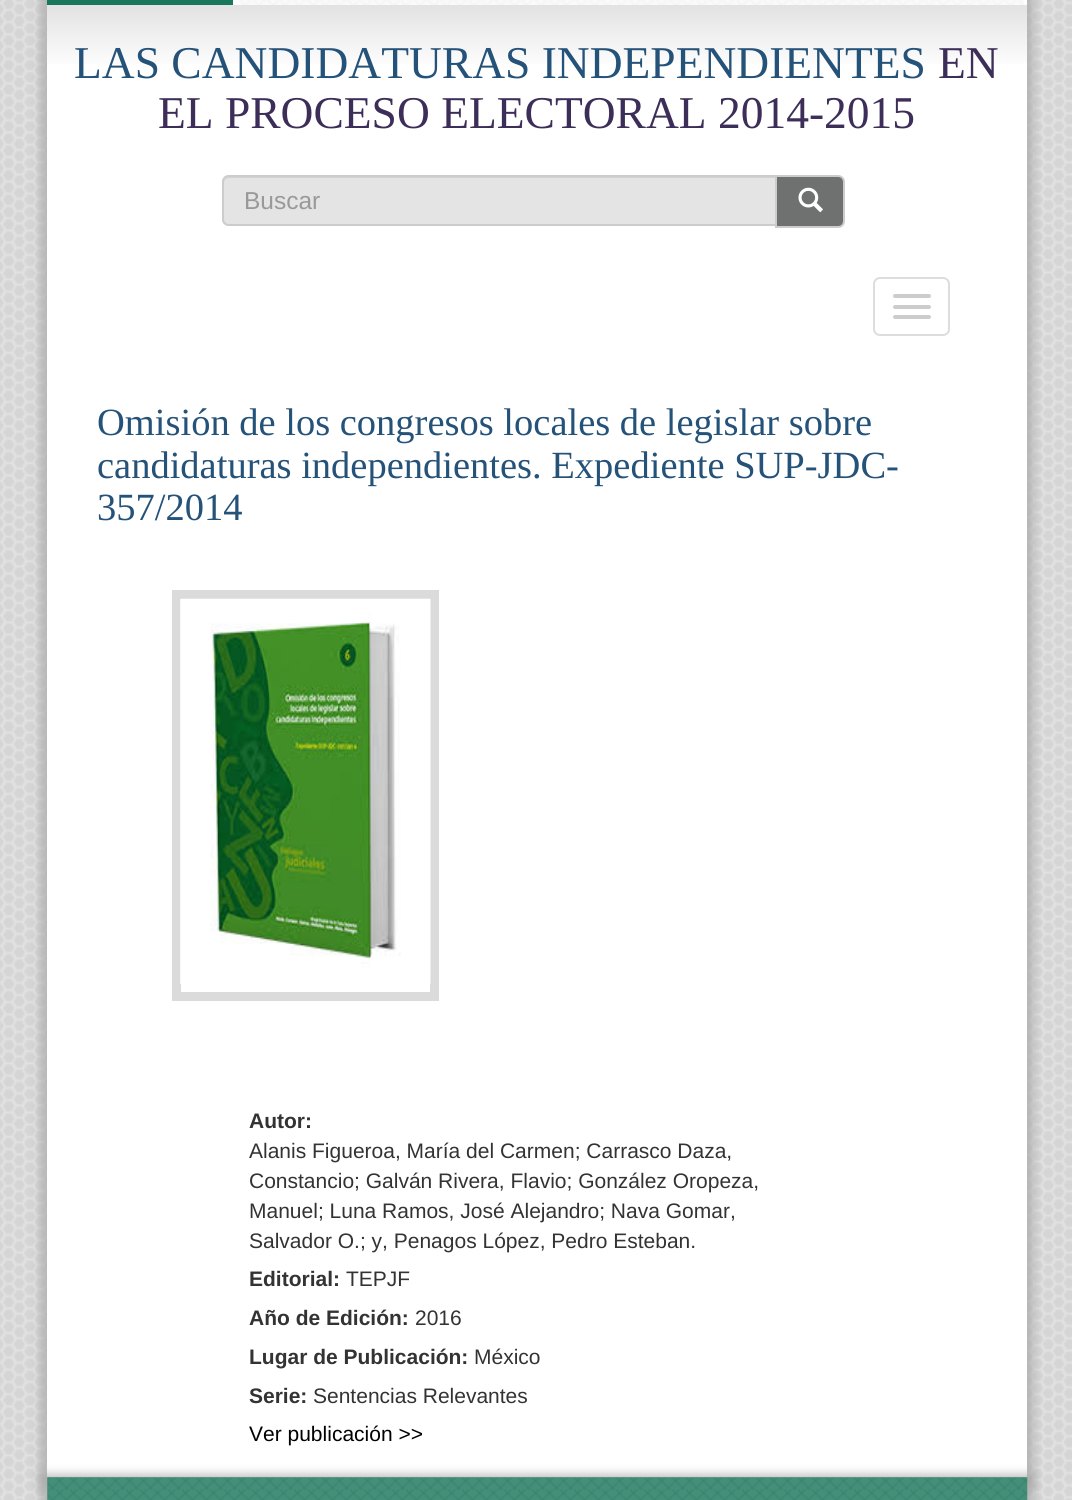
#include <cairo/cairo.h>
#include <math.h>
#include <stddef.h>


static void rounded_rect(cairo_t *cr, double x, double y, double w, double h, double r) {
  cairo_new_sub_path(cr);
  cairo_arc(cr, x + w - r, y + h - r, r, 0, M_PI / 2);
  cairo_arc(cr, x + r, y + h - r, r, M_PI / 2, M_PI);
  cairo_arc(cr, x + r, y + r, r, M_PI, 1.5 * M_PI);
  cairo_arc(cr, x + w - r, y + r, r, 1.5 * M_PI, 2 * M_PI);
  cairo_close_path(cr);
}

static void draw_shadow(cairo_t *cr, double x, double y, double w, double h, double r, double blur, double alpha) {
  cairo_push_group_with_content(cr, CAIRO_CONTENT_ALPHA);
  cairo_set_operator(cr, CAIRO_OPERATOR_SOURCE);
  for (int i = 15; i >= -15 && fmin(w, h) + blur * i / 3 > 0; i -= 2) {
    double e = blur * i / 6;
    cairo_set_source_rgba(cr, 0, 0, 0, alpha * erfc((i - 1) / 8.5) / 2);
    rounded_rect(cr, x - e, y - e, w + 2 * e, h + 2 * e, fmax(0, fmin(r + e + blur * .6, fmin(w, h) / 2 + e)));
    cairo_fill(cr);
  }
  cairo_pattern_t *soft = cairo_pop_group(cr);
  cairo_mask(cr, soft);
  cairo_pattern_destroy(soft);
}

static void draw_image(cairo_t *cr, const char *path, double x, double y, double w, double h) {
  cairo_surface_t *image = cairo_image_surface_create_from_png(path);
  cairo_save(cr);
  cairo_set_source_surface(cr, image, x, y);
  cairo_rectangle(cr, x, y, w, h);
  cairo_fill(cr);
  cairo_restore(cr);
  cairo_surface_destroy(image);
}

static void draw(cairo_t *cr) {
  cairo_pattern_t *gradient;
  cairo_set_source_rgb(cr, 1, 1, 1);
  cairo_paint(cr);
  draw_image(cr, "images/1.png", 0, 0, 1072, 1500);
  cairo_set_source_rgb(cr, 169 / 255.0, 169 / 255.0, 169 / 255.0);
  draw_shadow(cr, 40, -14, 994, 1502, 0, 4.5, 0.75);
  cairo_set_source_rgb(cr, 1, 1, 1);
  cairo_rectangle(cr, 47, 0, 980, 1477);
  cairo_fill(cr);
  cairo_set_source_rgb(cr, 25 / 255.0, 119 / 255.0, 92 / 255.0);
  cairo_rectangle(cr, 47, 0, 186, 5);
  cairo_fill(cr);
  draw_image(cr, "images/2.png", 240, 0, 784, 5);
  gradient = cairo_pattern_create_linear(537, 5.2, 537, 175);
  cairo_pattern_add_color_stop_rgba(gradient, 0, 226 / 255.0, 226 / 255.0, 226 / 255.0, 1);
  cairo_pattern_add_color_stop_rgba(gradient, 0.38, 1, 1, 1, 1);
  cairo_set_source(cr, gradient);
  cairo_pattern_destroy(gradient);
  cairo_rectangle(cr, 47, 5, 980, 59);
  cairo_fill(cr);
  cairo_set_source_rgb(cr, 228 / 255.0, 228 / 255.0, 228 / 255.0);
  cairo_new_path(cr);
  cairo_move_to(cr, 229, 175);
  cairo_line_to(cr, 777, 175);
  cairo_line_to(cr, 777, 226);
  cairo_line_to(cr, 229, 226);
  cairo_curve_to(cr, 225, 226, 222, 223, 222, 219);
  cairo_line_to(cr, 222, 182);
  cairo_curve_to(cr, 222, 178, 225, 175, 229, 175);
  cairo_close_path(cr);
  cairo_fill(cr);
  cairo_set_source_rgb(cr, 211 / 255.0, 211 / 255.0, 211 / 255.0);
  cairo_new_path(cr);
  cairo_move_to(cr, 229, 178);
  cairo_line_to(cr, 775, 178);
  cairo_line_to(cr, 775, 177);
  cairo_line_to(cr, 229, 177);
  cairo_curve_to(cr, 225, 177, 224, 181, 224, 184);
  cairo_curve_to(cr, 224, 181, 226, 178, 229, 178);
  cairo_close_path(cr);
  cairo_fill(cr);
  cairo_new_path(cr);
  cairo_move_to(cr, 229, 176);
  cairo_line_to(cr, 776, 176);
  cairo_line_to(cr, 776, 225);
  cairo_line_to(cr, 229, 225);
  cairo_curve_to(cr, 225.5, 225, 223, 222.5, 223, 219);
  cairo_line_to(cr, 223, 182);
  cairo_curve_to(cr, 223, 178.5, 225.5, 176, 229, 176);
  cairo_close_path(cr);
  cairo_set_source_rgb(cr, 204 / 255.0, 204 / 255.0, 204 / 255.0);
  cairo_stroke(cr);
  cairo_set_source_rgb(cr, 111 / 255.0, 112 / 255.0, 112 / 255.0);
  cairo_new_path(cr);
  cairo_move_to(cr, 776, 176);
  cairo_line_to(cr, 838, 176);
  cairo_curve_to(cr, 841.5, 176, 844, 178.5, 844, 182);
  cairo_line_to(cr, 844, 221);
  cairo_curve_to(cr, 844, 224.5, 841.5, 227, 838, 227);
  cairo_line_to(cr, 776, 227);
  cairo_close_path(cr);
  cairo_fill_preserve(cr);
  cairo_set_source_rgb(cr, 204 / 255.0, 204 / 255.0, 204 / 255.0);
  cairo_stroke(cr);
  draw_image(cr, "images/3.png", 798, 187, 25, 26);
  rounded_rect(cr, 874, 278, 75, 57, 6);
  cairo_set_source_rgb(cr, 221 / 255.0, 221 / 255.0, 221 / 255.0);
  cairo_stroke(cr);
  cairo_set_source_rgb(cr, 204 / 255.0, 204 / 255.0, 204 / 255.0);
  rounded_rect(cr, 893, 294, 38, 4, 2);
  cairo_fill(cr);
  rounded_rect(cr, 893, 305, 38, 4, 2);
  cairo_fill(cr);
  rounded_rect(cr, 893, 315, 38, 4, 2);
  cairo_fill(cr);
  cairo_rectangle(cr, 176.5, 594.5, 258, 402);
  cairo_set_source_rgb(cr, 219 / 255.0, 219 / 255.0, 219 / 255.0);
  cairo_set_line_width(cr, 9);
  cairo_stroke(cr);
  draw_image(cr, "images/4.png", 180, 598, 251, 386);
  cairo_set_source_rgb(cr, 169 / 255.0, 169 / 255.0, 169 / 255.0);
  draw_shadow(cr, 40, 1474, 994, 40, 0, 4.5, 0.75);
  draw_image(cr, "images/5.png", 47, 1477, 981, 23);
  cairo_select_font_face(cr, "Liberation Serif", CAIRO_FONT_SLANT_NORMAL, CAIRO_FONT_WEIGHT_NORMAL);
  cairo_set_font_size(cr, 45.5);
  cairo_set_source_rgb(cr, 37 / 255.0, 82 / 255.0, 121 / 255.0);
  cairo_move_to(cr, 74, 78);
  cairo_show_text(cr, "LAS CANDIDATURAS INDEPENDIENTES");
  cairo_set_source_rgb(cr, 60 / 255.0, 46 / 255.0, 89 / 255.0);
  cairo_move_to(cr, 938, 78);
  cairo_show_text(cr, "EN");
  cairo_move_to(cr, 158, 128);
  cairo_show_text(cr, "EL PROCESO ELECTORAL 2014-2015");
  cairo_select_font_face(cr, "Liberation Sans", CAIRO_FONT_SLANT_NORMAL, CAIRO_FONT_WEIGHT_NORMAL);
  cairo_set_font_size(cr, 24.5);
  cairo_set_source_rgb(cr, 153 / 255.0, 153 / 255.0, 153 / 255.0);
  cairo_move_to(cr, 244, 209);
  cairo_show_text(cr, "Buscar");
  cairo_select_font_face(cr, "Liberation Serif", CAIRO_FONT_SLANT_NORMAL, CAIRO_FONT_WEIGHT_NORMAL);
  cairo_set_font_size(cr, 38.5);
  cairo_set_source_rgb(cr, 37 / 255.0, 82 / 255.0, 121 / 255.0);
  cairo_move_to(cr, 97, 435);
  cairo_show_text(cr, "Omisión de los congresos locales de legislar sobre");
  cairo_move_to(cr, 97, 478);
  cairo_show_text(cr, "candidaturas independientes. Expediente SUP-JDC-");
  cairo_move_to(cr, 97, 520);
  cairo_show_text(cr, "357/2014");
  cairo_select_font_face(cr, "Liberation Sans", CAIRO_FONT_SLANT_NORMAL, CAIRO_FONT_WEIGHT_BOLD);
  cairo_set_font_size(cr, 21);
  cairo_set_source_rgb(cr, 51 / 255.0, 51 / 255.0, 51 / 255.0);
  cairo_move_to(cr, 249, 1128);
  cairo_show_text(cr, "Autor:");
  cairo_select_font_face(cr, "Liberation Sans", CAIRO_FONT_SLANT_NORMAL, CAIRO_FONT_WEIGHT_NORMAL);
  cairo_move_to(cr, 249, 1158);
  cairo_show_text(cr, "Alanis Figueroa, María del Carmen; Carrasco Daza,");
  cairo_move_to(cr, 249, 1188);
  cairo_show_text(cr, "Constancio; Galván Rivera, Flavio; González Oropeza,");
  cairo_move_to(cr, 249, 1218);
  cairo_show_text(cr, "Manuel; Luna Ramos, José Alejandro; Nava Gomar,");
  cairo_move_to(cr, 249, 1248);
  cairo_show_text(cr, "Salvador O.; y, Penagos López, Pedro Esteban.");
  cairo_select_font_face(cr, "Liberation Sans", CAIRO_FONT_SLANT_NORMAL, CAIRO_FONT_WEIGHT_BOLD);
  cairo_move_to(cr, 249, 1286);
  cairo_show_text(cr, "Editorial:");
  cairo_select_font_face(cr, "Liberation Sans", CAIRO_FONT_SLANT_NORMAL, CAIRO_FONT_WEIGHT_NORMAL);
  cairo_move_to(cr, 346, 1286);
  cairo_show_text(cr, "TEPJF");
  cairo_select_font_face(cr, "Liberation Sans", CAIRO_FONT_SLANT_NORMAL, CAIRO_FONT_WEIGHT_BOLD);
  cairo_move_to(cr, 249, 1325);
  cairo_show_text(cr, "Año de Edición:");
  cairo_select_font_face(cr, "Liberation Sans", CAIRO_FONT_SLANT_NORMAL, CAIRO_FONT_WEIGHT_NORMAL);
  cairo_move_to(cr, 415, 1325);
  cairo_show_text(cr, "2016");
  cairo_select_font_face(cr, "Liberation Sans", CAIRO_FONT_SLANT_NORMAL, CAIRO_FONT_WEIGHT_BOLD);
  cairo_move_to(cr, 249, 1364);
  cairo_show_text(cr, "Lugar de Publicación:");
  cairo_select_font_face(cr, "Liberation Sans", CAIRO_FONT_SLANT_NORMAL, CAIRO_FONT_WEIGHT_NORMAL);
  cairo_move_to(cr, 474, 1364);
  cairo_show_text(cr, "México");
  cairo_select_font_face(cr, "Liberation Sans", CAIRO_FONT_SLANT_NORMAL, CAIRO_FONT_WEIGHT_BOLD);
  cairo_move_to(cr, 249, 1403);
  cairo_show_text(cr, "Serie:");
  cairo_select_font_face(cr, "Liberation Sans", CAIRO_FONT_SLANT_NORMAL, CAIRO_FONT_WEIGHT_NORMAL);
  cairo_move_to(cr, 313, 1403);
  cairo_show_text(cr, "Sentencias Relevantes");
  cairo_set_source_rgb(cr, 0, 0, 0);
  cairo_move_to(cr, 249, 1441);
  cairo_show_text(cr, "Ver publicación >>");
}

int main(void) {
  cairo_surface_t *surface = cairo_image_surface_create(CAIRO_FORMAT_RGB24, 1072, 1500);
  cairo_t *cr = cairo_create(surface);
  cairo_font_options_t *options = cairo_font_options_create();
  cairo_font_options_set_hint_metrics(options, CAIRO_HINT_METRICS_OFF);
  cairo_font_options_set_hint_style(options, CAIRO_HINT_STYLE_NONE);
  cairo_set_font_options(cr, options);
  cairo_set_miter_limit(cr, 4);
  draw(cr);
  cairo_surface_write_to_png(surface, "out.png");
  cairo_font_options_destroy(options);
  cairo_destroy(cr);
  cairo_surface_destroy(surface);
  return 0;
}
